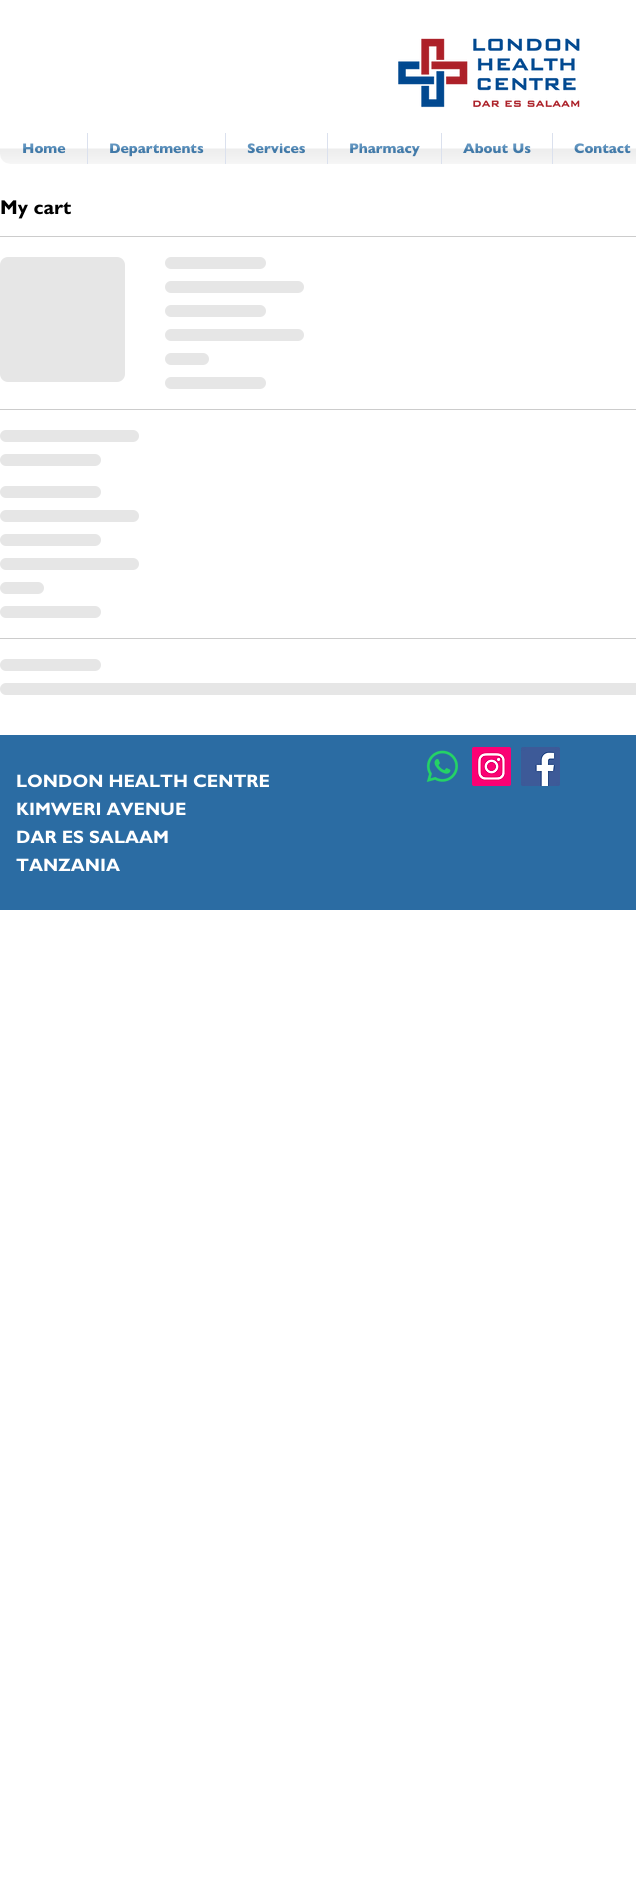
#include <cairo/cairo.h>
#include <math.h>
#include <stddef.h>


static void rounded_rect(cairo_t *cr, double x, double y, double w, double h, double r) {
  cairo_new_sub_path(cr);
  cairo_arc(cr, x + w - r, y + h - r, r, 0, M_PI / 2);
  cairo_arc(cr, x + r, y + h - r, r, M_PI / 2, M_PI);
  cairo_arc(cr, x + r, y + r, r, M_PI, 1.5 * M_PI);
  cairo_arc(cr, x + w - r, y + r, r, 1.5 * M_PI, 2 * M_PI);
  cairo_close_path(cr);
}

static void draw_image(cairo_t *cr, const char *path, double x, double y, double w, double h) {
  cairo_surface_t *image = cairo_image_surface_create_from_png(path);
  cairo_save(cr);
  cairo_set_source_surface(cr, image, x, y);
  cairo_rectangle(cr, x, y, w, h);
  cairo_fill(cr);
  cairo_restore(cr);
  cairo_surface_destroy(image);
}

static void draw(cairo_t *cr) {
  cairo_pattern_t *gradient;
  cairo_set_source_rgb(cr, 1, 1, 1);
  cairo_paint(cr);
  draw_image(cr, "images/1.png", 398, 38, 182, 70);
  draw_image(cr, "images/2.png", 0, 154, 1, 1);
  cairo_set_source_rgb(cr, 1, 1, 1);
  cairo_new_path(cr);
  cairo_move_to(cr, 10, 133);
  cairo_line_to(cr, 87, 133);
  cairo_line_to(cr, 87, 164);
  cairo_line_to(cr, 10, 164);
  cairo_curve_to(cr, 4.5, 164, 0, 159.5, 0, 154);
  cairo_line_to(cr, 0, 143);
  cairo_curve_to(cr, 0, 137.5, 4.5, 133, 10, 133);
  cairo_close_path(cr);
  cairo_fill(cr);
  cairo_set_source_rgb(cr, 219 / 255.0, 225 / 255.0, 238 / 255.0);
  cairo_rectangle(cr, 87, 133, 1, 31);
  cairo_fill(cr);
  cairo_rectangle(cr, 225, 133, 1, 31);
  cairo_fill(cr);
  cairo_rectangle(cr, 327, 133, 1, 31);
  cairo_fill(cr);
  cairo_rectangle(cr, 441, 133, 1, 31);
  cairo_fill(cr);
  cairo_rectangle(cr, 552, 133, 1, 31);
  cairo_fill(cr);
  cairo_set_source_rgb(cr, 204 / 255.0, 204 / 255.0, 204 / 255.0);
  cairo_rectangle(cr, 0, 236, 636, 1);
  cairo_fill(cr);
  gradient = cairo_pattern_create_linear(0, 320, 500, 320);
  cairo_pattern_add_color_stop_rgba(gradient, 0.25, 230 / 255.0, 230 / 255.0, 230 / 255.0, 1);
  cairo_pattern_add_color_stop_rgba(gradient, 0.37, 204 / 255.0, 204 / 255.0, 204 / 255.0, 1);
  cairo_pattern_add_color_stop_rgba(gradient, 0.63, 230 / 255.0, 230 / 255.0, 230 / 255.0, 1);
  cairo_set_source(cr, gradient);
  cairo_pattern_destroy(gradient);
  rounded_rect(cr, 0, 257, 125, 125, 8);
  cairo_fill(cr);
  gradient = cairo_pattern_create_linear(165, 263, 569, 263);
  cairo_pattern_add_color_stop_rgba(gradient, 0.25, 230 / 255.0, 230 / 255.0, 230 / 255.0, 1);
  cairo_pattern_add_color_stop_rgba(gradient, 0.37, 204 / 255.0, 204 / 255.0, 204 / 255.0, 1);
  cairo_pattern_add_color_stop_rgba(gradient, 0.63, 230 / 255.0, 230 / 255.0, 230 / 255.0, 1);
  cairo_set_source(cr, gradient);
  cairo_pattern_destroy(gradient);
  rounded_rect(cr, 165, 257, 101, 12, 6);
  cairo_fill(cr);
  gradient = cairo_pattern_create_linear(165, 287, 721, 287);
  cairo_pattern_add_color_stop_rgba(gradient, 0.25, 230 / 255.0, 230 / 255.0, 230 / 255.0, 1);
  cairo_pattern_add_color_stop_rgba(gradient, 0.37, 204 / 255.0, 204 / 255.0, 204 / 255.0, 1);
  cairo_pattern_add_color_stop_rgba(gradient, 0.63, 230 / 255.0, 230 / 255.0, 230 / 255.0, 1);
  cairo_set_source(cr, gradient);
  cairo_pattern_destroy(gradient);
  rounded_rect(cr, 165, 281, 139, 12, 6);
  cairo_fill(cr);
  gradient = cairo_pattern_create_linear(165, 311, 569, 311);
  cairo_pattern_add_color_stop_rgba(gradient, 0.25, 230 / 255.0, 230 / 255.0, 230 / 255.0, 1);
  cairo_pattern_add_color_stop_rgba(gradient, 0.37, 204 / 255.0, 204 / 255.0, 204 / 255.0, 1);
  cairo_pattern_add_color_stop_rgba(gradient, 0.63, 230 / 255.0, 230 / 255.0, 230 / 255.0, 1);
  cairo_set_source(cr, gradient);
  cairo_pattern_destroy(gradient);
  rounded_rect(cr, 165, 305, 101, 12, 6);
  cairo_fill(cr);
  gradient = cairo_pattern_create_linear(165, 335, 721, 335);
  cairo_pattern_add_color_stop_rgba(gradient, 0.25, 230 / 255.0, 230 / 255.0, 230 / 255.0, 1);
  cairo_pattern_add_color_stop_rgba(gradient, 0.37, 204 / 255.0, 204 / 255.0, 204 / 255.0, 1);
  cairo_pattern_add_color_stop_rgba(gradient, 0.63, 230 / 255.0, 230 / 255.0, 230 / 255.0, 1);
  cairo_set_source(cr, gradient);
  cairo_pattern_destroy(gradient);
  rounded_rect(cr, 165, 329, 139, 12, 6);
  cairo_fill(cr);
  gradient = cairo_pattern_create_linear(165, 359, 341, 359);
  cairo_pattern_add_color_stop_rgba(gradient, 0.25, 230 / 255.0, 230 / 255.0, 230 / 255.0, 1);
  cairo_pattern_add_color_stop_rgba(gradient, 0.37, 204 / 255.0, 204 / 255.0, 204 / 255.0, 1);
  cairo_pattern_add_color_stop_rgba(gradient, 0.63, 230 / 255.0, 230 / 255.0, 230 / 255.0, 1);
  cairo_set_source(cr, gradient);
  cairo_pattern_destroy(gradient);
  rounded_rect(cr, 165, 353, 44, 12, 6);
  cairo_fill(cr);
  gradient = cairo_pattern_create_linear(165, 383, 569, 383);
  cairo_pattern_add_color_stop_rgba(gradient, 0.25, 230 / 255.0, 230 / 255.0, 230 / 255.0, 1);
  cairo_pattern_add_color_stop_rgba(gradient, 0.37, 204 / 255.0, 204 / 255.0, 204 / 255.0, 1);
  cairo_pattern_add_color_stop_rgba(gradient, 0.63, 230 / 255.0, 230 / 255.0, 230 / 255.0, 1);
  cairo_set_source(cr, gradient);
  cairo_pattern_destroy(gradient);
  rounded_rect(cr, 165, 377, 101, 12, 6);
  cairo_fill(cr);
  cairo_set_source_rgb(cr, 204 / 255.0, 204 / 255.0, 204 / 255.0);
  cairo_rectangle(cr, 0, 409, 636, 1);
  cairo_fill(cr);
  gradient = cairo_pattern_create_linear(0, 436, 556, 436);
  cairo_pattern_add_color_stop_rgba(gradient, 0.25, 230 / 255.0, 230 / 255.0, 230 / 255.0, 1);
  cairo_pattern_add_color_stop_rgba(gradient, 0.37, 204 / 255.0, 204 / 255.0, 204 / 255.0, 1);
  cairo_pattern_add_color_stop_rgba(gradient, 0.63, 230 / 255.0, 230 / 255.0, 230 / 255.0, 1);
  cairo_set_source(cr, gradient);
  cairo_pattern_destroy(gradient);
  rounded_rect(cr, 0, 430, 139, 12, 6);
  cairo_fill(cr);
  gradient = cairo_pattern_create_linear(0, 460, 404, 460);
  cairo_pattern_add_color_stop_rgba(gradient, 0.25, 230 / 255.0, 230 / 255.0, 230 / 255.0, 1);
  cairo_pattern_add_color_stop_rgba(gradient, 0.37, 204 / 255.0, 204 / 255.0, 204 / 255.0, 1);
  cairo_pattern_add_color_stop_rgba(gradient, 0.63, 230 / 255.0, 230 / 255.0, 230 / 255.0, 1);
  cairo_set_source(cr, gradient);
  cairo_pattern_destroy(gradient);
  rounded_rect(cr, 0, 454, 101, 12, 6);
  cairo_fill(cr);
  gradient = cairo_pattern_create_linear(0, 492, 404, 492);
  cairo_pattern_add_color_stop_rgba(gradient, 0.25, 230 / 255.0, 230 / 255.0, 230 / 255.0, 1);
  cairo_pattern_add_color_stop_rgba(gradient, 0.37, 204 / 255.0, 204 / 255.0, 204 / 255.0, 1);
  cairo_pattern_add_color_stop_rgba(gradient, 0.63, 230 / 255.0, 230 / 255.0, 230 / 255.0, 1);
  cairo_set_source(cr, gradient);
  cairo_pattern_destroy(gradient);
  rounded_rect(cr, 0, 486, 101, 12, 6);
  cairo_fill(cr);
  gradient = cairo_pattern_create_linear(0, 516, 556, 516);
  cairo_pattern_add_color_stop_rgba(gradient, 0.25, 230 / 255.0, 230 / 255.0, 230 / 255.0, 1);
  cairo_pattern_add_color_stop_rgba(gradient, 0.37, 204 / 255.0, 204 / 255.0, 204 / 255.0, 1);
  cairo_pattern_add_color_stop_rgba(gradient, 0.63, 230 / 255.0, 230 / 255.0, 230 / 255.0, 1);
  cairo_set_source(cr, gradient);
  cairo_pattern_destroy(gradient);
  rounded_rect(cr, 0, 510, 139, 12, 6);
  cairo_fill(cr);
  gradient = cairo_pattern_create_linear(0, 540, 404, 540);
  cairo_pattern_add_color_stop_rgba(gradient, 0.25, 230 / 255.0, 230 / 255.0, 230 / 255.0, 1);
  cairo_pattern_add_color_stop_rgba(gradient, 0.37, 204 / 255.0, 204 / 255.0, 204 / 255.0, 1);
  cairo_pattern_add_color_stop_rgba(gradient, 0.63, 230 / 255.0, 230 / 255.0, 230 / 255.0, 1);
  cairo_set_source(cr, gradient);
  cairo_pattern_destroy(gradient);
  rounded_rect(cr, 0, 534, 101, 12, 6);
  cairo_fill(cr);
  gradient = cairo_pattern_create_linear(0, 564, 556, 564);
  cairo_pattern_add_color_stop_rgba(gradient, 0.25, 230 / 255.0, 230 / 255.0, 230 / 255.0, 1);
  cairo_pattern_add_color_stop_rgba(gradient, 0.37, 204 / 255.0, 204 / 255.0, 204 / 255.0, 1);
  cairo_pattern_add_color_stop_rgba(gradient, 0.63, 230 / 255.0, 230 / 255.0, 230 / 255.0, 1);
  cairo_set_source(cr, gradient);
  cairo_pattern_destroy(gradient);
  rounded_rect(cr, 0, 558, 139, 12, 6);
  cairo_fill(cr);
  gradient = cairo_pattern_create_linear(0, 588, 176, 588);
  cairo_pattern_add_color_stop_rgba(gradient, 0.25, 230 / 255.0, 230 / 255.0, 230 / 255.0, 1);
  cairo_pattern_add_color_stop_rgba(gradient, 0.37, 204 / 255.0, 204 / 255.0, 204 / 255.0, 1);
  cairo_pattern_add_color_stop_rgba(gradient, 0.63, 230 / 255.0, 230 / 255.0, 230 / 255.0, 1);
  cairo_set_source(cr, gradient);
  cairo_pattern_destroy(gradient);
  rounded_rect(cr, 0, 582, 44, 12, 6);
  cairo_fill(cr);
  gradient = cairo_pattern_create_linear(0, 612, 404, 612);
  cairo_pattern_add_color_stop_rgba(gradient, 0.25, 230 / 255.0, 230 / 255.0, 230 / 255.0, 1);
  cairo_pattern_add_color_stop_rgba(gradient, 0.37, 204 / 255.0, 204 / 255.0, 204 / 255.0, 1);
  cairo_pattern_add_color_stop_rgba(gradient, 0.63, 230 / 255.0, 230 / 255.0, 230 / 255.0, 1);
  cairo_set_source(cr, gradient);
  cairo_pattern_destroy(gradient);
  rounded_rect(cr, 0, 606, 101, 12, 6);
  cairo_fill(cr);
  cairo_set_source_rgb(cr, 204 / 255.0, 204 / 255.0, 204 / 255.0);
  cairo_rectangle(cr, 0, 638, 636, 1);
  cairo_fill(cr);
  gradient = cairo_pattern_create_linear(0, 665, 404, 665);
  cairo_pattern_add_color_stop_rgba(gradient, 0.25, 230 / 255.0, 230 / 255.0, 230 / 255.0, 1);
  cairo_pattern_add_color_stop_rgba(gradient, 0.37, 204 / 255.0, 204 / 255.0, 204 / 255.0, 1);
  cairo_pattern_add_color_stop_rgba(gradient, 0.63, 230 / 255.0, 230 / 255.0, 230 / 255.0, 1);
  cairo_set_source(cr, gradient);
  cairo_pattern_destroy(gradient);
  rounded_rect(cr, 0, 659, 101, 12, 6);
  cairo_fill(cr);
  gradient = cairo_pattern_create_linear(0, 689, 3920, 689);
  cairo_pattern_add_color_stop_rgba(gradient, 0.25, 230 / 255.0, 230 / 255.0, 230 / 255.0, 1);
  cairo_pattern_add_color_stop_rgba(gradient, 0.37, 204 / 255.0, 204 / 255.0, 204 / 255.0, 1);
  cairo_pattern_add_color_stop_rgba(gradient, 0.63, 230 / 255.0, 230 / 255.0, 230 / 255.0, 1);
  cairo_set_source(cr, gradient);
  cairo_pattern_destroy(gradient);
  rounded_rect(cr, 0, 683, 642, 12, 6);
  cairo_fill(cr);
  cairo_set_source_rgb(cr, 43 / 255.0, 108 / 255.0, 163 / 255.0);
  cairo_rectangle(cr, 0, 735, 636, 175);
  cairo_fill(cr);
  draw_image(cr, "images/9.png", 426, 750, 32, 32);
  draw_image(cr, "images/10.png", 472, 747, 39, 39);
  draw_image(cr, "images/11.png", 521, 747, 39, 39);
  cairo_select_font_face(cr, "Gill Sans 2", CAIRO_FONT_SLANT_NORMAL, CAIRO_FONT_WEIGHT_BOLD);
  cairo_set_font_size(cr, 14);
  cairo_set_source_rgb(cr, 70 / 255.0, 130 / 255.0, 180 / 255.0);
  cairo_move_to(cr, 22, 153);
  cairo_show_text(cr, "Home");
  draw_image(cr, "images/3.png", 0, 143, 87, 21);
  cairo_move_to(cr, 109, 153);
  cairo_show_text(cr, "Departments");
  draw_image(cr, "images/4.png", 88, 143, 137, 21);
  cairo_move_to(cr, 247, 153);
  cairo_show_text(cr, "Services");
  draw_image(cr, "images/5.png", 226, 143, 101, 21);
  cairo_move_to(cr, 349, 153);
  cairo_show_text(cr, "Pharmacy");
  draw_image(cr, "images/6.png", 328, 143, 113, 21);
  cairo_move_to(cr, 463, 153);
  cairo_show_text(cr, "About Us");
  draw_image(cr, "images/7.png", 442, 143, 110, 21);
  cairo_move_to(cr, 574, 153);
  cairo_show_text(cr, "Contact");
  draw_image(cr, "images/8.png", 553, 143, 83, 21);
  cairo_select_font_face(cr, "Gill Sans", CAIRO_FONT_SLANT_NORMAL, CAIRO_FONT_WEIGHT_BOLD);
  cairo_set_font_size(cr, 20);
  cairo_set_source_rgb(cr, 0, 0, 0);
  cairo_move_to(cr, 0, 214);
  cairo_show_text(cr, "My cart");
  cairo_set_font_size(cr, 18);
  cairo_set_source_rgb(cr, 1, 1, 1);
  cairo_move_to(cr, 16, 787);
  cairo_show_text(cr, "LONDON HEALTH CENTRE");
  cairo_move_to(cr, 16, 815);
  cairo_show_text(cr, "KIMWERI AVENUE");
  cairo_move_to(cr, 16, 843);
  cairo_show_text(cr, "DAR ES SALAAM");
  cairo_move_to(cr, 16, 871);
  cairo_show_text(cr, "TANZANIA");
}

int main(void) {
  cairo_surface_t *surface = cairo_image_surface_create(CAIRO_FORMAT_RGB24, 636, 1884);
  cairo_t *cr = cairo_create(surface);
  cairo_font_options_t *options = cairo_font_options_create();
  cairo_font_options_set_hint_metrics(options, CAIRO_HINT_METRICS_OFF);
  cairo_font_options_set_hint_style(options, CAIRO_HINT_STYLE_NONE);
  cairo_set_font_options(cr, options);
  cairo_set_miter_limit(cr, 4);
  draw(cr);
  cairo_surface_write_to_png(surface, "out.png");
  cairo_font_options_destroy(options);
  cairo_destroy(cr);
  cairo_surface_destroy(surface);
  return 0;
}
